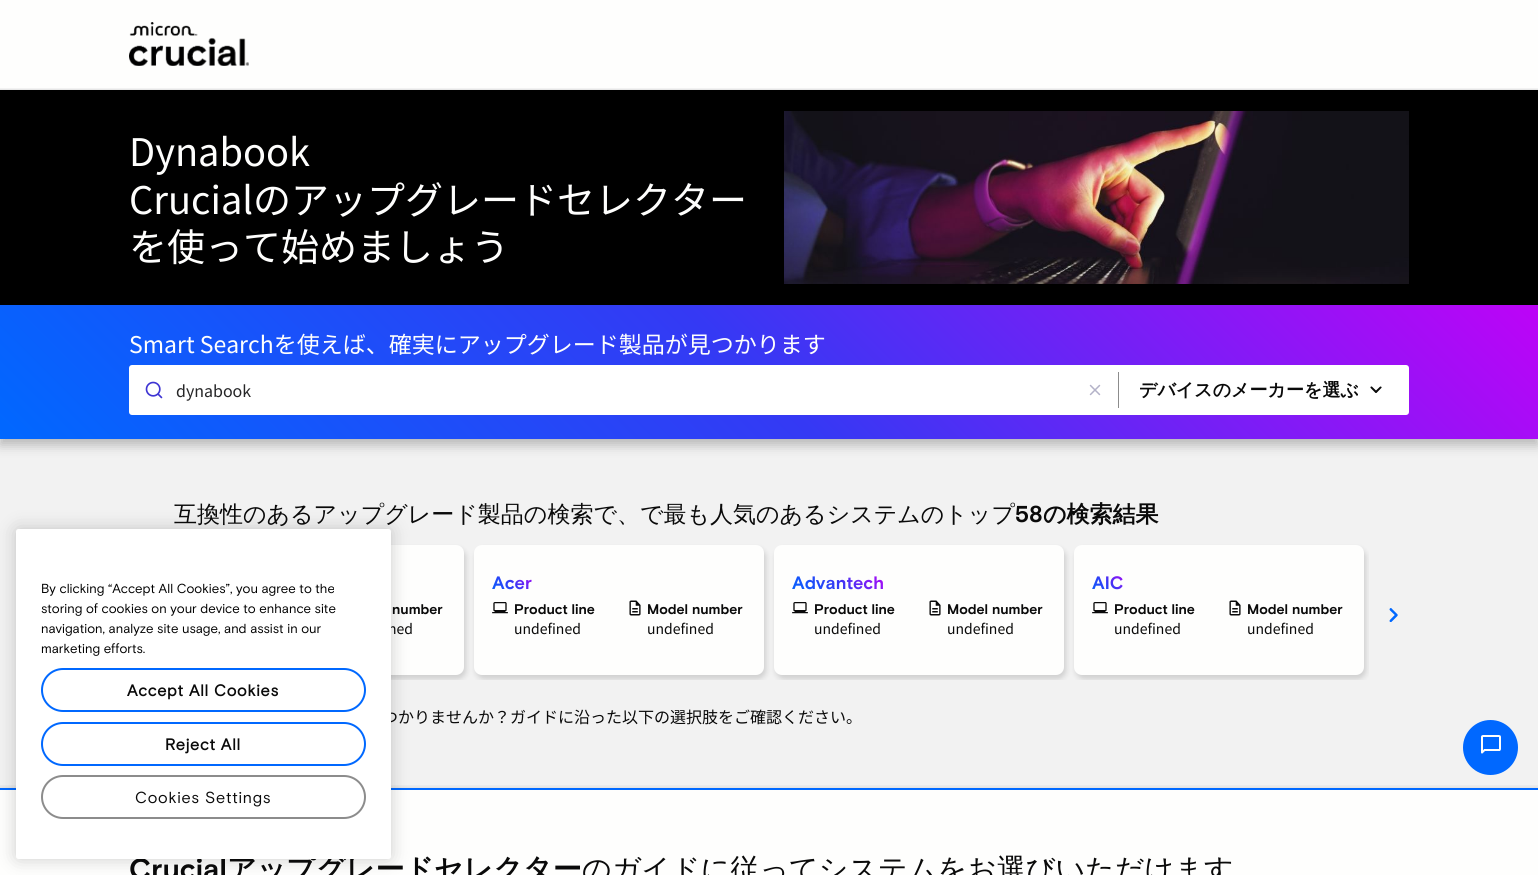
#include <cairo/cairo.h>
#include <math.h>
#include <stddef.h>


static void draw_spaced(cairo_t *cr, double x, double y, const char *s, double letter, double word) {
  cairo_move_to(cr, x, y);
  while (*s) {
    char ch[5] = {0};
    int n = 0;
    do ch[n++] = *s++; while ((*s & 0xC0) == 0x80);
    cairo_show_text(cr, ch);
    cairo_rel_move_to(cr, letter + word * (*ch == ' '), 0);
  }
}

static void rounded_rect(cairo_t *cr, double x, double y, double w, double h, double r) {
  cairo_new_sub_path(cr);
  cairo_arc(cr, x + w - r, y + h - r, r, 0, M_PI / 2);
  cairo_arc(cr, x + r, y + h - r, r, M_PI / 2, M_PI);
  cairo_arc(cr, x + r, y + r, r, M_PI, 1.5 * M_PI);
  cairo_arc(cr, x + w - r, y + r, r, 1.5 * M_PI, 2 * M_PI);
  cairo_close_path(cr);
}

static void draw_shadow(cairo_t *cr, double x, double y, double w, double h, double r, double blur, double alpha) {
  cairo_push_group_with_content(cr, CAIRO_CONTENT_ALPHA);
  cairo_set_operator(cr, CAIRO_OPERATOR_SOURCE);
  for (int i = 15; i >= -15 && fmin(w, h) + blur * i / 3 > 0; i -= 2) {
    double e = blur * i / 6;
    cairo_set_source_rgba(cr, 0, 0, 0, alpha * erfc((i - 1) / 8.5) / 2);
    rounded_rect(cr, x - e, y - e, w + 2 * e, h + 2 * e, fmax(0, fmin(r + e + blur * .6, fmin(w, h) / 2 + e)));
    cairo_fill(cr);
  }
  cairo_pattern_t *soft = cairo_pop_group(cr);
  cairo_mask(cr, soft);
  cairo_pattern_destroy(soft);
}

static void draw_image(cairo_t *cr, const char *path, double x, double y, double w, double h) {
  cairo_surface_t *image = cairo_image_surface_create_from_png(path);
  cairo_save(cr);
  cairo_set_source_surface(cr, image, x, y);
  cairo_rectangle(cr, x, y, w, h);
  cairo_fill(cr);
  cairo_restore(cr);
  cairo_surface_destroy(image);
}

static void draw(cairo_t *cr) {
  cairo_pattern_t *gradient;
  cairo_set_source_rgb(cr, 254 / 255.0, 254 / 255.0, 253 / 255.0);
  cairo_paint(cr);
  cairo_set_source_rgb(cr, 230 / 255.0, 230 / 255.0, 230 / 255.0);
  cairo_rectangle(cr, 0, 89, 1538, 1);
  cairo_fill(cr);
  cairo_set_source_rgb(cr, 242 / 255.0, 242 / 255.0, 242 / 255.0);
  cairo_rectangle(cr, 0, 88, 1538, 1);
  cairo_fill(cr);
  draw_image(cr, "images/1.png", 129, 22, 120, 44);
  cairo_set_source_rgb(cr, 0, 0, 0);
  cairo_rectangle(cr, 0, 90, 1538, 215);
  cairo_fill(cr);
  draw_image(cr, "images/2.png", 784, 111, 625, 173);
  cairo_set_source_rgb(cr, 242 / 255.0, 242 / 255.0, 242 / 255.0);
  cairo_rectangle(cr, 0, 439, 1538, 349);
  cairo_fill(cr);
  cairo_set_source_rgb(cr, 0, 0, 0);
  draw_shadow(cr, 0, 311, 1538, 134, 0, 6, 0.25);
  gradient = cairo_pattern_create_linear(1187, -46, 351, 790);
  cairo_pattern_add_color_stop_rgba(gradient, 0, 189 / 255.0, 3 / 255.0, 247 / 255.0, 1);
  cairo_pattern_add_color_stop_rgba(gradient, 0.51, 53 / 255.0, 57 / 255.0, 244 / 255.0, 1);
  cairo_pattern_add_color_stop_rgba(gradient, 1, 0, 104 / 255.0, 1, 1);
  cairo_set_source(cr, gradient);
  cairo_pattern_destroy(gradient);
  cairo_rectangle(cr, 0, 305, 1538, 134);
  cairo_fill(cr);
  cairo_set_source_rgb(cr, 1, 1, 1);
  rounded_rect(cr, 129, 365, 1280, 50, 3);
  cairo_fill(cr);
  draw_image(cr, "images/3.png", 145, 381, 18, 18);
  draw_image(cr, "images/4.png", 1089, 384, 12, 12);
  cairo_set_source_rgb(cr, 140 / 255.0, 140 / 255.0, 140 / 255.0);
  cairo_rectangle(cr, 1118, 372, 1, 36);
  cairo_fill(cr);
  draw_image(cr, "images/5.png", 1370, 386, 12, 7);
  cairo_save(cr);
  cairo_rectangle(cr, 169, 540, 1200, 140);
  cairo_clip(cr);
  cairo_set_source_rgb(cr, 0, 0, 0);
  draw_shadow(cr, 176, 549, 290, 130, 8, 3, 0.15);
  cairo_restore(cr);
  cairo_set_source_rgb(cr, 254 / 255.0, 254 / 255.0, 253 / 255.0);
  rounded_rect(cr, 174, 545, 290, 130, 8);
  cairo_fill(cr);
  cairo_save(cr);
  cairo_rectangle(cr, 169, 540, 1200, 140);
  cairo_clip(cr);
  cairo_set_source_rgb(cr, 0, 0, 0);
  draw_shadow(cr, 476, 549, 290, 130, 8, 3, 0.15);
  cairo_restore(cr);
  rounded_rect(cr, 474, 545, 290, 130, 8);
  cairo_fill(cr);
  draw_image(cr, "images/6.png", 492, 602, 16, 12);
  draw_image(cr, "images/7.png", 629, 600, 12, 16);
  cairo_save(cr);
  cairo_rectangle(cr, 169, 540, 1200, 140);
  cairo_clip(cr);
  cairo_set_source_rgb(cr, 0, 0, 0);
  draw_shadow(cr, 776, 549, 290, 130, 8, 3, 0.15);
  cairo_restore(cr);
  rounded_rect(cr, 774, 545, 290, 130, 8);
  cairo_fill(cr);
  draw_image(cr, "images/6.png", 792, 602, 16, 12);
  draw_image(cr, "images/7.png", 929, 600, 12, 16);
  cairo_save(cr);
  cairo_rectangle(cr, 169, 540, 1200, 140);
  cairo_clip(cr);
  cairo_set_source_rgb(cr, 0, 0, 0);
  draw_shadow(cr, 1076, 549, 290, 130, 8, 3, 0.15);
  cairo_restore(cr);
  rounded_rect(cr, 1074, 545, 290, 130, 8);
  cairo_fill(cr);
  draw_image(cr, "images/6.png", 1092, 602, 16, 12);
  draw_image(cr, "images/7.png", 1229, 600, 12, 16);
  draw_image(cr, "images/8.png", 1389, 608, 9, 14);
  cairo_save(cr);
  cairo_rectangle(cr, 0, 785, 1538, 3);
  cairo_clip(cr);
  cairo_set_source_rgb(cr, 0, 0, 0);
  draw_shadow(cr, 0, 788, 1538, 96, 0, 3, 0.14);
  cairo_restore(cr);
  cairo_set_source_rgb(cr, 0, 104 / 255.0, 1);
  cairo_rectangle(cr, 0, 788, 1538, 2);
  cairo_fill(cr);
  cairo_set_source_rgb(cr, 0, 0, 0);
  draw_shadow(cr, 16, 529, 375, 330, 2.5, 9, 0.2);
  cairo_set_source_rgb(cr, 0, 104 / 255.0, 1);
  cairo_arc(cr, 1490.5, 747.5, 27.5, 0, 2 * M_PI);
  cairo_fill(cr);
  draw_image(cr, "images/9.png", 1481, 735, 20, 19);
  cairo_select_font_face(cr, "Noto Sans JP", CAIRO_FONT_SLANT_NORMAL, CAIRO_FONT_WEIGHT_NORMAL);
  cairo_set_font_size(cr, 38);
  cairo_set_source_rgb(cr, 254 / 255.0, 254 / 255.0, 253 / 255.0);
  cairo_move_to(cr, 129, 166);
  cairo_show_text(cr, "Dynabook");
  cairo_move_to(cr, 129, 214);
  cairo_show_text(cr, "Crucialのアップグレードセレクター");
  cairo_move_to(cr, 129, 261);
  cairo_show_text(cr, "を使って始めましょう");
  cairo_set_font_size(cr, 23);
  cairo_move_to(cr, 129, 353);
  cairo_show_text(cr, "Smart Searchを使えば、確実にアップグレード製品が見つかります");
  cairo_set_font_size(cr, 16);
  cairo_set_source_rgb(cr, 38 / 255.0, 38 / 255.0, 39 / 255.0);
  cairo_move_to(cr, 176, 397);
  cairo_show_text(cr, "dynabook");
  cairo_select_font_face(cr, "WenQuanYi Zen Hei", CAIRO_FONT_SLANT_NORMAL, CAIRO_FONT_WEIGHT_BOLD);
  cairo_set_font_size(cr, 18);
  cairo_set_source_rgb(cr, 10 / 255.0, 10 / 255.0, 10 / 255.0);
  cairo_move_to(cr, 1139, 396);
  cairo_show_text(cr, "デバイスのメーカーを選ぶ");
  cairo_select_font_face(cr, "WenQuanYi Zen Hei Medium", CAIRO_FONT_SLANT_NORMAL, CAIRO_FONT_WEIGHT_NORMAL);
  cairo_set_font_size(cr, 23);
  cairo_move_to(cr, 174, 522);
  cairo_show_text(cr, "互換性のあるアップグレード製品の検索で、で最も人気のあるシステムのトップ");
  cairo_select_font_face(cr, "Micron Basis", CAIRO_FONT_SLANT_NORMAL, CAIRO_FONT_WEIGHT_BOLD);
  cairo_move_to(cr, 1015, 522);
  cairo_show_text(cr, "58");
  cairo_select_font_face(cr, "WenQuanYi Zen Hei", CAIRO_FONT_SLANT_NORMAL, CAIRO_FONT_WEIGHT_BOLD);
  cairo_move_to(cr, 1043, 522);
  cairo_show_text(cr, "の検索結果");
  cairo_select_font_face(cr, "Micron Basis", CAIRO_FONT_SLANT_NORMAL, CAIRO_FONT_WEIGHT_BOLD);
  cairo_set_font_size(cr, 14);
  cairo_move_to(cr, 392, 614);
  cairo_show_text(cr, "number");
  cairo_select_font_face(cr, "Noto Sans JP", CAIRO_FONT_SLANT_NORMAL, CAIRO_FONT_WEIGHT_NORMAL);
  cairo_move_to(cr, 388, 634);
  cairo_show_text(cr, "ned");
  cairo_select_font_face(cr, "Micron Basis", CAIRO_FONT_SLANT_NORMAL, CAIRO_FONT_WEIGHT_BOLD);
  cairo_set_font_size(cr, 18);
  gradient = cairo_pattern_create_linear(529, 566, 495, 599);
  cairo_pattern_add_color_stop_rgba(gradient, 0, 189 / 255.0, 3 / 255.0, 247 / 255.0, 1);
  cairo_pattern_add_color_stop_rgba(gradient, 0.51, 53 / 255.0, 57 / 255.0, 244 / 255.0, 1);
  cairo_pattern_add_color_stop_rgba(gradient, 1, 0, 104 / 255.0, 1, 1);
  cairo_set_source(cr, gradient);
  cairo_pattern_destroy(gradient);
  cairo_move_to(cr, 492, 589);
  cairo_show_text(cr, "Acer");
  cairo_set_font_size(cr, 14);
  cairo_set_source_rgb(cr, 10 / 255.0, 10 / 255.0, 10 / 255.0);
  cairo_move_to(cr, 514, 614);
  cairo_show_text(cr, "Product line");
  cairo_select_font_face(cr, "Noto Sans JP", CAIRO_FONT_SLANT_NORMAL, CAIRO_FONT_WEIGHT_NORMAL);
  cairo_move_to(cr, 514, 634);
  cairo_show_text(cr, "undefined");
  cairo_select_font_face(cr, "Micron Basis", CAIRO_FONT_SLANT_NORMAL, CAIRO_FONT_WEIGHT_BOLD);
  cairo_move_to(cr, 647, 614);
  cairo_show_text(cr, "Model number");
  cairo_select_font_face(cr, "Noto Sans JP", CAIRO_FONT_SLANT_NORMAL, CAIRO_FONT_WEIGHT_NORMAL);
  cairo_move_to(cr, 647, 634);
  cairo_show_text(cr, "undefined");
  cairo_select_font_face(cr, "Micron Basis", CAIRO_FONT_SLANT_NORMAL, CAIRO_FONT_WEIGHT_BOLD);
  cairo_set_font_size(cr, 18);
  gradient = cairo_pattern_create_linear(868, 553, 808, 612);
  cairo_pattern_add_color_stop_rgba(gradient, 0, 189 / 255.0, 3 / 255.0, 247 / 255.0, 1);
  cairo_pattern_add_color_stop_rgba(gradient, 0.51, 53 / 255.0, 57 / 255.0, 244 / 255.0, 1);
  cairo_pattern_add_color_stop_rgba(gradient, 1, 0, 104 / 255.0, 1, 1);
  cairo_set_source(cr, gradient);
  cairo_pattern_destroy(gradient);
  cairo_move_to(cr, 792, 589);
  cairo_show_text(cr, "Advantech");
  cairo_set_font_size(cr, 14);
  cairo_set_source_rgb(cr, 10 / 255.0, 10 / 255.0, 10 / 255.0);
  cairo_move_to(cr, 814, 614);
  cairo_show_text(cr, "Product line");
  cairo_select_font_face(cr, "Noto Sans JP", CAIRO_FONT_SLANT_NORMAL, CAIRO_FONT_WEIGHT_NORMAL);
  cairo_move_to(cr, 814, 634);
  cairo_show_text(cr, "undefined");
  cairo_select_font_face(cr, "Micron Basis", CAIRO_FONT_SLANT_NORMAL, CAIRO_FONT_WEIGHT_BOLD);
  cairo_move_to(cr, 947, 614);
  cairo_show_text(cr, "Model number");
  cairo_select_font_face(cr, "Noto Sans JP", CAIRO_FONT_SLANT_NORMAL, CAIRO_FONT_WEIGHT_NORMAL);
  cairo_move_to(cr, 947, 634);
  cairo_show_text(cr, "undefined");
  cairo_select_font_face(cr, "Micron Basis", CAIRO_FONT_SLANT_NORMAL, CAIRO_FONT_WEIGHT_BOLD);
  cairo_set_font_size(cr, 18);
  gradient = cairo_pattern_create_linear(1122, 568, 1093, 597);
  cairo_pattern_add_color_stop_rgba(gradient, 0, 189 / 255.0, 3 / 255.0, 247 / 255.0, 1);
  cairo_pattern_add_color_stop_rgba(gradient, 0.51, 53 / 255.0, 57 / 255.0, 244 / 255.0, 1);
  cairo_pattern_add_color_stop_rgba(gradient, 1, 0, 104 / 255.0, 1, 1);
  cairo_set_source(cr, gradient);
  cairo_pattern_destroy(gradient);
  cairo_move_to(cr, 1092, 589);
  cairo_show_text(cr, "AIC");
  cairo_set_font_size(cr, 14);
  cairo_set_source_rgb(cr, 10 / 255.0, 10 / 255.0, 10 / 255.0);
  cairo_move_to(cr, 1114, 614);
  cairo_show_text(cr, "Product line");
  cairo_select_font_face(cr, "Noto Sans JP", CAIRO_FONT_SLANT_NORMAL, CAIRO_FONT_WEIGHT_NORMAL);
  cairo_move_to(cr, 1114, 634);
  cairo_show_text(cr, "undefined");
  cairo_select_font_face(cr, "Micron Basis", CAIRO_FONT_SLANT_NORMAL, CAIRO_FONT_WEIGHT_BOLD);
  cairo_move_to(cr, 1247, 614);
  cairo_show_text(cr, "Model number");
  cairo_select_font_face(cr, "Noto Sans JP", CAIRO_FONT_SLANT_NORMAL, CAIRO_FONT_WEIGHT_NORMAL);
  cairo_move_to(cr, 1247, 634);
  cairo_show_text(cr, "undefined");
  cairo_set_font_size(cr, 16);
  cairo_move_to(cr, 382, 723);
  cairo_show_text(cr, "つかりませんか？ガイドに沿った以下の選択肢をご確認ください。");
  cairo_select_font_face(cr, "Micron Basis", CAIRO_FONT_SLANT_NORMAL, CAIRO_FONT_WEIGHT_BOLD);
  cairo_set_font_size(cr, 29);
  cairo_move_to(cr, 129, 879);
  cairo_show_text(cr, "Crucial");
  cairo_select_font_face(cr, "WenQuanYi Zen Hei", CAIRO_FONT_SLANT_NORMAL, CAIRO_FONT_WEIGHT_BOLD);
  cairo_move_to(cr, 227, 879);
  cairo_show_text(cr, "アップグレードセレクター");
  cairo_select_font_face(cr, "WenQuanYi Zen Hei Medium", CAIRO_FONT_SLANT_NORMAL, CAIRO_FONT_WEIGHT_NORMAL);
  cairo_move_to(cr, 582, 879);
  cairo_show_text(cr, "のガイドに従ってシステムをお選びいただけます");
  cairo_set_source_rgb(cr, 1, 1, 1);
  rounded_rect(cr, 16, 529, 375, 330, 2.5);
  cairo_fill(cr);
  cairo_select_font_face(cr, "Micron Basis", CAIRO_FONT_SLANT_NORMAL, CAIRO_FONT_WEIGHT_NORMAL);
  cairo_set_font_size(cr, 13.1);
  cairo_set_source_rgb(cr, 0, 0, 0);
  cairo_move_to(cr, 41, 593);
  cairo_show_text(cr, "By clicking “Accept All Cookies”, you agree to the");
  cairo_move_to(cr, 41, 613);
  cairo_show_text(cr, "storing of cookies on your device to enhance site");
  cairo_move_to(cr, 41, 633);
  cairo_show_text(cr, "navigation, analyze site usage, and assist in our");
  cairo_move_to(cr, 41, 653);
  cairo_show_text(cr, "marketing efforts.");
  rounded_rect(cr, 42, 669, 323, 42, 21);
  cairo_set_source_rgb(cr, 0, 104 / 255.0, 1);
  cairo_stroke(cr);
  cairo_select_font_face(cr, "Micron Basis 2", CAIRO_FONT_SLANT_NORMAL, CAIRO_FONT_WEIGHT_BOLD);
  cairo_set_font_size(cr, 16);
  cairo_set_source_rgb(cr, 10 / 255.0, 10 / 255.0, 10 / 255.0);
  draw_spaced(cr, 127, 696, "Accept All Cookies", 0.75, 0);
  rounded_rect(cr, 42, 723, 323, 42, 21);
  cairo_set_source_rgb(cr, 0, 104 / 255.0, 1);
  cairo_stroke(cr);
  cairo_set_source_rgb(cr, 10 / 255.0, 10 / 255.0, 10 / 255.0);
  draw_spaced(cr, 165, 750, "Reject All", 0.75, 0);
  rounded_rect(cr, 42, 776, 323, 42, 21);
  cairo_set_source_rgb(cr, 140 / 255.0, 140 / 255.0, 140 / 255.0);
  cairo_stroke(cr);
  cairo_select_font_face(cr, "Micron Basis", CAIRO_FONT_SLANT_NORMAL, CAIRO_FONT_WEIGHT_NORMAL);
  cairo_set_source_rgb(cr, 10 / 255.0, 10 / 255.0, 10 / 255.0);
  draw_spaced(cr, 135, 803, "Cookies Settings", 0.75, 0);
}

int main(void) {
  cairo_surface_t *surface = cairo_image_surface_create(CAIRO_FORMAT_RGB24, 1538, 875);
  cairo_t *cr = cairo_create(surface);
  cairo_font_options_t *options = cairo_font_options_create();
  cairo_font_options_set_hint_metrics(options, CAIRO_HINT_METRICS_OFF);
  cairo_font_options_set_hint_style(options, CAIRO_HINT_STYLE_NONE);
  cairo_set_font_options(cr, options);
  cairo_set_miter_limit(cr, 4);
  draw(cr);
  cairo_surface_write_to_png(surface, "out.png");
  cairo_font_options_destroy(options);
  cairo_destroy(cr);
  cairo_surface_destroy(surface);
  return 0;
}
